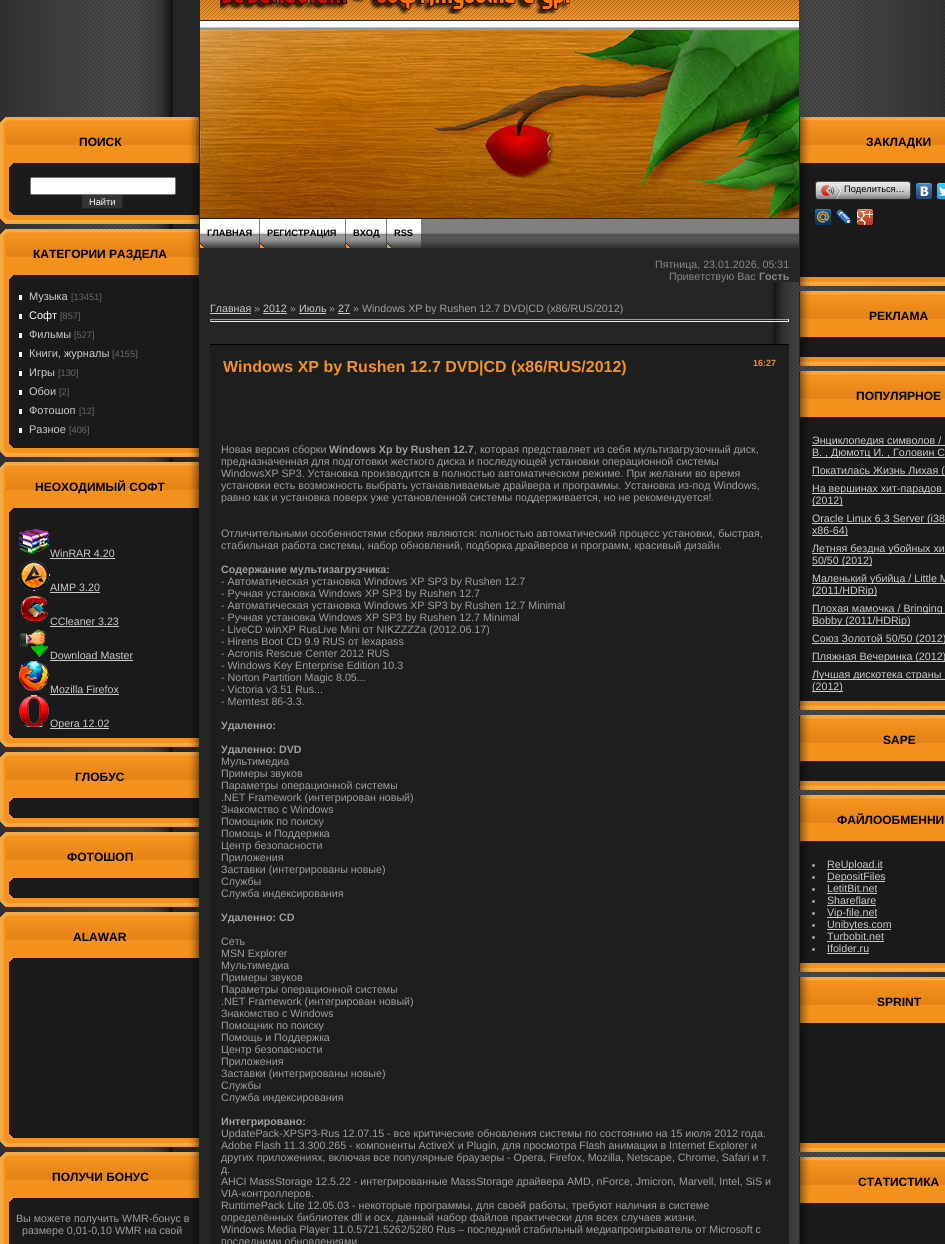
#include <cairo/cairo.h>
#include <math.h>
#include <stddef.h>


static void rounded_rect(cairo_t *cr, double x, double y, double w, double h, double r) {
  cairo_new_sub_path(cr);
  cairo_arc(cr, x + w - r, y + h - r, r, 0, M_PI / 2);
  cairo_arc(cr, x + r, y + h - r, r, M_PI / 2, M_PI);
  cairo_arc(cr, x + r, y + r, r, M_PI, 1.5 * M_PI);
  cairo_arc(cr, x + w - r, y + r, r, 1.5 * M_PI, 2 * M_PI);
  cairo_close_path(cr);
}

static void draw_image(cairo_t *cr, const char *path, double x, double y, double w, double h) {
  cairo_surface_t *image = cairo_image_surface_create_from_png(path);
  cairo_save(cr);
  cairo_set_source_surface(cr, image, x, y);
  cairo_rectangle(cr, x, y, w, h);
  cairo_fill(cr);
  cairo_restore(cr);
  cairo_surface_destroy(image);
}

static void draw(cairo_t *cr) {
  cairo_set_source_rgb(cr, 1, 1, 1);
  cairo_paint(cr);
  draw_image(cr, "images/1.png", 0, 0, 945, 1244);
  draw_image(cr, "images/2.png", 0, 117, 199, 50);
  draw_image(cr, "images/3.png", 0, 167, 199, 57);
  cairo_set_source_rgb(cr, 1, 1, 1);
  rounded_rect(cr, 30.5, 177.5, 145, 17, 1.5);
  cairo_fill_preserve(cr);
  cairo_set_source_rgb(cr, 118 / 255.0, 118 / 255.0, 118 / 255.0);
  cairo_set_line_width(cr, 1);
  cairo_stroke(cr);
  cairo_set_source_rgb(cr, 51 / 255.0, 51 / 255.0, 51 / 255.0);
  cairo_rectangle(cr, 83, 195, 39, 13);
  cairo_fill(cr);
  cairo_set_source_rgb(cr, 34 / 255.0, 34 / 255.0, 34 / 255.0);
  cairo_rectangle(cr, 122, 195, 1, 14);
  cairo_fill(cr);
  cairo_rectangle(cr, 82, 208, 41, 1);
  cairo_fill(cr);
  cairo_set_source_rgb(cr, 51 / 255.0, 51 / 255.0, 51 / 255.0);
  cairo_rectangle(cr, 82, 195, 1, 14);
  cairo_fill(cr);
  draw_image(cr, "images/2.png", 0, 229, 199, 50);
  draw_image(cr, "images/4.png", 0, 279, 199, 178);
  cairo_set_source_rgb(cr, 1, 1, 1);
  cairo_rectangle(cr, 19, 295, 3, 5);
  cairo_fill(cr);
  cairo_rectangle(cr, 19, 314, 3, 5);
  cairo_fill(cr);
  cairo_rectangle(cr, 19, 333, 3, 5);
  cairo_fill(cr);
  cairo_rectangle(cr, 19, 352, 3, 5);
  cairo_fill(cr);
  cairo_rectangle(cr, 19, 371, 3, 5);
  cairo_fill(cr);
  cairo_rectangle(cr, 19, 390, 3, 5);
  cairo_fill(cr);
  cairo_rectangle(cr, 19, 409, 3, 5);
  cairo_fill(cr);
  cairo_rectangle(cr, 19, 428, 3, 5);
  cairo_fill(cr);
  draw_image(cr, "images/5.png", 0, 462, 199, 50);
  draw_image(cr, "images/6.png", 0, 512, 199, 235);
  draw_image(cr, "images/7.png", 19, 529, 31, 26);
  cairo_set_source_rgb(cr, 204 / 255.0, 204 / 255.0, 204 / 255.0);
  cairo_rectangle(cr, 50, 558, 65, 1);
  cairo_fill(cr);
  draw_image(cr, "images/8.png", 19, 560, 31, 31);
  cairo_rectangle(cr, 50, 592, 50, 1);
  cairo_fill(cr);
  draw_image(cr, "images/9.png", 21, 596, 27, 27);
  cairo_rectangle(cr, 50, 626, 69, 1);
  cairo_fill(cr);
  draw_image(cr, "images/10.png", 19, 629, 29, 28);
  cairo_rectangle(cr, 50, 660, 83, 1);
  cairo_fill(cr);
  draw_image(cr, "images/11.png", 19, 661, 30, 30);
  cairo_rectangle(cr, 50, 694, 69, 1);
  cairo_fill(cr);
  draw_image(cr, "images/12.png", 19, 695, 30, 32);
  cairo_rectangle(cr, 50, 728, 59, 1);
  cairo_fill(cr);
  draw_image(cr, "images/13.png", 0, 752, 199, 50);
  draw_image(cr, "images/14.png", 0, 802, 199, 25);
  draw_image(cr, "images/13.png", 0, 832, 199, 50);
  draw_image(cr, "images/14.png", 0, 882, 199, 25);
  draw_image(cr, "images/13.png", 0, 912, 199, 50);
  draw_image(cr, "images/15.png", 0, 962, 199, 185);
  draw_image(cr, "images/13.png", 0, 1152, 199, 50);
  draw_image(cr, "images/16.png", 0, 1202, 199, 42);
  draw_image(cr, "images/17.png", 200, 0, 599, 20);
  draw_image(cr, "images/18.png", 220, 0, 350, 14);
  draw_image(cr, "images/19.png", 200, 20, 599, 262);
  draw_image(cr, "images/20.png", 200, 219, 59, 29);
  draw_image(cr, "images/21.png", 260, 219, 85, 29);
  draw_image(cr, "images/22.png", 346, 219, 40, 29);
  draw_image(cr, "images/23.png", 387, 219, 34, 29);
  cairo_rectangle(cr, 210, 313, 41, 1);
  cairo_fill(cr);
  cairo_rectangle(cr, 263, 313, 24, 1);
  cairo_fill(cr);
  cairo_rectangle(cr, 299, 313, 27, 1);
  cairo_fill(cr);
  cairo_rectangle(cr, 338, 313, 12, 1);
  cairo_fill(cr);
  cairo_set_source_rgb(cr, 159 / 255.0, 159 / 255.0, 159 / 255.0);
  cairo_rectangle(cr, 210, 319, 579, 1);
  cairo_fill(cr);
  cairo_set_source_rgb(cr, 238 / 255.0, 238 / 255.0, 238 / 255.0);
  cairo_rectangle(cr, 788, 319, 1, 3);
  cairo_fill(cr);
  cairo_rectangle(cr, 210, 321, 579, 1);
  cairo_fill(cr);
  cairo_set_source_rgb(cr, 159 / 255.0, 159 / 255.0, 159 / 255.0);
  cairo_rectangle(cr, 210, 319, 1, 3);
  cairo_fill(cr);
  cairo_set_source_rgb(cr, 30 / 255.0, 30 / 255.0, 30 / 255.0);
  cairo_rectangle(cr, 210, 345, 579, 899);
  cairo_fill(cr);
  cairo_set_source_rgb(cr, 0, 0, 0);
  cairo_rectangle(cr, 210, 344, 579, 1);
  cairo_fill(cr);
  draw_image(cr, "images/24.png", 799, 117, 146, 50);
  draw_image(cr, "images/25.png", 799, 167, 146, 119);
  draw_image(cr, "images/26.png", 818, 181, 90, 19);
  draw_image(cr, "images/27.png", 815, 181, 3, 19);
  draw_image(cr, "images/28.png", 821, 182, 20, 17);
  draw_image(cr, "images/29.png", 908, 181, 3, 19);
  draw_image(cr, "images/30.png", 916, 183, 16, 16);
  draw_image(cr, "images/31.png", 937, 183, 8, 16);
  draw_image(cr, "images/32.png", 815, 209, 16, 16);
  draw_image(cr, "images/33.png", 836, 209, 16, 16);
  draw_image(cr, "images/34.png", 857, 209, 16, 16);
  draw_image(cr, "images/24.png", 799, 291, 146, 50);
  draw_image(cr, "images/35.png", 799, 341, 146, 25);
  draw_image(cr, "images/24.png", 799, 371, 146, 50);
  draw_image(cr, "images/36.png", 799, 421, 146, 289);
  cairo_set_source_rgb(cr, 204 / 255.0, 204 / 255.0, 204 / 255.0);
  cairo_rectangle(cr, 812, 445, 133, 1);
  cairo_fill(cr);
  cairo_rectangle(cr, 812, 457, 133, 1);
  cairo_fill(cr);
  cairo_rectangle(cr, 812, 475, 133, 1);
  cairo_fill(cr);
  cairo_rectangle(cr, 812, 493, 133, 1);
  cairo_fill(cr);
  cairo_rectangle(cr, 812, 505, 31, 1);
  cairo_fill(cr);
  cairo_rectangle(cr, 812, 523, 133, 1);
  cairo_fill(cr);
  cairo_rectangle(cr, 812, 535, 36, 1);
  cairo_fill(cr);
  cairo_rectangle(cr, 812, 553, 133, 1);
  cairo_fill(cr);
  cairo_rectangle(cr, 812, 565, 60, 1);
  cairo_fill(cr);
  cairo_rectangle(cr, 812, 583, 133, 1);
  cairo_fill(cr);
  cairo_rectangle(cr, 812, 595, 65, 1);
  cairo_fill(cr);
  cairo_rectangle(cr, 812, 613, 133, 1);
  cairo_fill(cr);
  cairo_rectangle(cr, 812, 625, 98, 1);
  cairo_fill(cr);
  cairo_rectangle(cr, 812, 643, 133, 1);
  cairo_fill(cr);
  cairo_rectangle(cr, 812, 661, 133, 1);
  cairo_fill(cr);
  cairo_rectangle(cr, 812, 679, 133, 1);
  cairo_fill(cr);
  cairo_rectangle(cr, 812, 691, 31, 1);
  cairo_fill(cr);
  draw_image(cr, "images/24.png", 799, 715, 146, 50);
  draw_image(cr, "images/35.png", 799, 765, 146, 25);
  draw_image(cr, "images/24.png", 799, 795, 146, 50);
  draw_image(cr, "images/37.png", 799, 845, 146, 127);
  cairo_set_source_rgb(cr, 159 / 255.0, 159 / 255.0, 159 / 255.0);
  cairo_arc(cr, 813.5, 865.5, 1.5, 0, 2 * M_PI);
  cairo_fill(cr);
  cairo_set_source_rgb(cr, 204 / 255.0, 204 / 255.0, 204 / 255.0);
  cairo_rectangle(cr, 827, 869, 55, 1);
  cairo_fill(cr);
  cairo_set_source_rgb(cr, 159 / 255.0, 159 / 255.0, 159 / 255.0);
  cairo_arc(cr, 813.5, 877.5, 1.5, 0, 2 * M_PI);
  cairo_fill(cr);
  cairo_set_source_rgb(cr, 204 / 255.0, 204 / 255.0, 204 / 255.0);
  cairo_rectangle(cr, 827, 881, 58, 1);
  cairo_fill(cr);
  cairo_set_source_rgb(cr, 159 / 255.0, 159 / 255.0, 159 / 255.0);
  cairo_arc(cr, 813.5, 889.5, 1.5, 0, 2 * M_PI);
  cairo_fill(cr);
  cairo_set_source_rgb(cr, 204 / 255.0, 204 / 255.0, 204 / 255.0);
  cairo_rectangle(cr, 827, 893, 50, 1);
  cairo_fill(cr);
  cairo_set_source_rgb(cr, 159 / 255.0, 159 / 255.0, 159 / 255.0);
  cairo_arc(cr, 813.5, 901.5, 1.5, 0, 2 * M_PI);
  cairo_fill(cr);
  cairo_set_source_rgb(cr, 204 / 255.0, 204 / 255.0, 204 / 255.0);
  cairo_rectangle(cr, 827, 905, 49, 1);
  cairo_fill(cr);
  cairo_set_source_rgb(cr, 159 / 255.0, 159 / 255.0, 159 / 255.0);
  cairo_arc(cr, 813.5, 913.5, 1.5, 0, 2 * M_PI);
  cairo_fill(cr);
  cairo_set_source_rgb(cr, 204 / 255.0, 204 / 255.0, 204 / 255.0);
  cairo_rectangle(cr, 827, 917, 50, 1);
  cairo_fill(cr);
  cairo_set_source_rgb(cr, 159 / 255.0, 159 / 255.0, 159 / 255.0);
  cairo_arc(cr, 813.5, 925.5, 1.5, 0, 2 * M_PI);
  cairo_fill(cr);
  cairo_set_source_rgb(cr, 204 / 255.0, 204 / 255.0, 204 / 255.0);
  cairo_rectangle(cr, 827, 929, 64, 1);
  cairo_fill(cr);
  cairo_set_source_rgb(cr, 159 / 255.0, 159 / 255.0, 159 / 255.0);
  cairo_arc(cr, 813.5, 937.5, 1.5, 0, 2 * M_PI);
  cairo_fill(cr);
  cairo_set_source_rgb(cr, 204 / 255.0, 204 / 255.0, 204 / 255.0);
  cairo_rectangle(cr, 827, 941, 57, 1);
  cairo_fill(cr);
  cairo_set_source_rgb(cr, 159 / 255.0, 159 / 255.0, 159 / 255.0);
  cairo_arc(cr, 813.5, 949.5, 1.5, 0, 2 * M_PI);
  cairo_fill(cr);
  cairo_set_source_rgb(cr, 204 / 255.0, 204 / 255.0, 204 / 255.0);
  cairo_rectangle(cr, 827, 953, 42, 1);
  cairo_fill(cr);
  draw_image(cr, "images/24.png", 799, 977, 146, 50);
  draw_image(cr, "images/38.png", 799, 1027, 146, 125);
  draw_image(cr, "images/24.png", 799, 1157, 146, 50);
  draw_image(cr, "images/39.png", 799, 1207, 146, 37);
  cairo_select_font_face(cr, "Liberation Sans", CAIRO_FONT_SLANT_NORMAL, CAIRO_FONT_WEIGHT_BOLD);
  cairo_set_font_size(cr, 12);
  cairo_set_source_rgb(cr, 0, 0, 0);
  cairo_move_to(cr, 79, 146);
  cairo_show_text(cr, "ПОИСК");
  cairo_select_font_face(cr, "Liberation Sans", CAIRO_FONT_SLANT_NORMAL, CAIRO_FONT_WEIGHT_NORMAL);
  cairo_set_font_size(cr, 9.25);
  cairo_set_source_rgb(cr, 1, 1, 1);
  cairo_move_to(cr, 89, 205);
  cairo_show_text(cr, "Найти");
  cairo_select_font_face(cr, "Liberation Sans", CAIRO_FONT_SLANT_NORMAL, CAIRO_FONT_WEIGHT_BOLD);
  cairo_set_font_size(cr, 12);
  cairo_set_source_rgb(cr, 0, 0, 0);
  cairo_move_to(cr, 33, 258);
  cairo_show_text(cr, "КАТЕГОРИИ РАЗДЕЛА");
  cairo_select_font_face(cr, "Liberation Sans", CAIRO_FONT_SLANT_NORMAL, CAIRO_FONT_WEIGHT_NORMAL);
  cairo_set_font_size(cr, 11);
  cairo_set_source_rgb(cr, 204 / 255.0, 204 / 255.0, 204 / 255.0);
  cairo_move_to(cr, 29, 300);
  cairo_show_text(cr, "Музыка");
  cairo_set_font_size(cr, 9.25);
  cairo_set_source_rgb(cr, 105 / 255.0, 105 / 255.0, 105 / 255.0);
  cairo_move_to(cr, 71, 300);
  cairo_show_text(cr, "[13451]");
  cairo_set_font_size(cr, 11);
  cairo_set_source_rgb(cr, 1, 1, 1);
  cairo_move_to(cr, 29, 319);
  cairo_show_text(cr, "Софт");
  cairo_set_font_size(cr, 9.25);
  cairo_set_source_rgb(cr, 105 / 255.0, 105 / 255.0, 105 / 255.0);
  cairo_move_to(cr, 60, 319);
  cairo_show_text(cr, "[857]");
  cairo_set_font_size(cr, 11);
  cairo_set_source_rgb(cr, 204 / 255.0, 204 / 255.0, 204 / 255.0);
  cairo_move_to(cr, 29, 338);
  cairo_show_text(cr, "Фильмы");
  cairo_set_font_size(cr, 9.25);
  cairo_set_source_rgb(cr, 105 / 255.0, 105 / 255.0, 105 / 255.0);
  cairo_move_to(cr, 74, 338);
  cairo_show_text(cr, "[527]");
  cairo_set_font_size(cr, 11);
  cairo_set_source_rgb(cr, 204 / 255.0, 204 / 255.0, 204 / 255.0);
  cairo_move_to(cr, 29, 357);
  cairo_show_text(cr, "Книги, журналы");
  cairo_set_font_size(cr, 9.25);
  cairo_set_source_rgb(cr, 105 / 255.0, 105 / 255.0, 105 / 255.0);
  cairo_move_to(cr, 112, 357);
  cairo_show_text(cr, "[4155]");
  cairo_set_font_size(cr, 11);
  cairo_set_source_rgb(cr, 204 / 255.0, 204 / 255.0, 204 / 255.0);
  cairo_move_to(cr, 29, 376);
  cairo_show_text(cr, "Игры");
  cairo_set_font_size(cr, 9.25);
  cairo_set_source_rgb(cr, 105 / 255.0, 105 / 255.0, 105 / 255.0);
  cairo_move_to(cr, 58, 376);
  cairo_show_text(cr, "[130]");
  cairo_set_font_size(cr, 11);
  cairo_set_source_rgb(cr, 204 / 255.0, 204 / 255.0, 204 / 255.0);
  cairo_move_to(cr, 29, 395);
  cairo_show_text(cr, "Обои");
  cairo_set_font_size(cr, 9.25);
  cairo_set_source_rgb(cr, 105 / 255.0, 105 / 255.0, 105 / 255.0);
  cairo_move_to(cr, 59, 395);
  cairo_show_text(cr, "[2]");
  cairo_set_font_size(cr, 11);
  cairo_set_source_rgb(cr, 204 / 255.0, 204 / 255.0, 204 / 255.0);
  cairo_move_to(cr, 29, 414);
  cairo_show_text(cr, "Фотошоп");
  cairo_set_font_size(cr, 9.25);
  cairo_set_source_rgb(cr, 105 / 255.0, 105 / 255.0, 105 / 255.0);
  cairo_move_to(cr, 79, 414);
  cairo_show_text(cr, "[12]");
  cairo_set_font_size(cr, 11);
  cairo_set_source_rgb(cr, 204 / 255.0, 204 / 255.0, 204 / 255.0);
  cairo_move_to(cr, 29, 433);
  cairo_show_text(cr, "Разное");
  cairo_set_font_size(cr, 9.25);
  cairo_set_source_rgb(cr, 105 / 255.0, 105 / 255.0, 105 / 255.0);
  cairo_move_to(cr, 69, 433);
  cairo_show_text(cr, "[406]");
  cairo_select_font_face(cr, "Liberation Sans", CAIRO_FONT_SLANT_NORMAL, CAIRO_FONT_WEIGHT_BOLD);
  cairo_set_font_size(cr, 12);
  cairo_set_source_rgb(cr, 0, 0, 0);
  cairo_move_to(cr, 35, 491);
  cairo_show_text(cr, "НЕОХОДИМЫЙ СОФТ");
  cairo_select_font_face(cr, "Liberation Sans", CAIRO_FONT_SLANT_NORMAL, CAIRO_FONT_WEIGHT_NORMAL);
  cairo_set_font_size(cr, 10.67);
  cairo_set_source_rgb(cr, 204 / 255.0, 204 / 255.0, 204 / 255.0);
  cairo_move_to(cr, 50, 557);
  cairo_show_text(cr, "WinRAR 4.20");
  cairo_move_to(cr, 50, 591);
  cairo_show_text(cr, "AIMP 3.20");
  cairo_move_to(cr, 50, 625);
  cairo_show_text(cr, "CCleaner 3.23");
  cairo_move_to(cr, 50, 659);
  cairo_show_text(cr, "Download Master");
  cairo_move_to(cr, 50, 693);
  cairo_show_text(cr, "Mozilla Firefox");
  cairo_move_to(cr, 50, 727);
  cairo_show_text(cr, "Opera 12.02");
  cairo_select_font_face(cr, "Liberation Sans", CAIRO_FONT_SLANT_NORMAL, CAIRO_FONT_WEIGHT_BOLD);
  cairo_set_font_size(cr, 12);
  cairo_set_source_rgb(cr, 0, 0, 0);
  cairo_move_to(cr, 75, 781);
  cairo_show_text(cr, "ГЛОБУС");
  cairo_move_to(cr, 67, 861);
  cairo_show_text(cr, "ФОТОШОП");
  cairo_move_to(cr, 73, 941);
  cairo_show_text(cr, "ALAWAR");
  cairo_move_to(cr, 52, 1181);
  cairo_show_text(cr, "ПОЛУЧИ БОНУС");
  cairo_select_font_face(cr, "Liberation Sans", CAIRO_FONT_SLANT_NORMAL, CAIRO_FONT_WEIGHT_NORMAL);
  cairo_set_font_size(cr, 10.67);
  cairo_set_source_rgb(cr, 159 / 255.0, 159 / 255.0, 159 / 255.0);
  cairo_move_to(cr, 16, 1222);
  cairo_show_text(cr, "Вы можете получить WMR-бонус в");
  cairo_move_to(cr, 22, 1234);
  cairo_show_text(cr, "размере 0,01-0,10 WMR на свой");
  cairo_select_font_face(cr, "Liberation Sans", CAIRO_FONT_SLANT_NORMAL, CAIRO_FONT_WEIGHT_BOLD);
  cairo_set_font_size(cr, 9.25);
  cairo_set_source_rgb(cr, 0, 0, 0);
  cairo_move_to(cr, 207, 236);
  cairo_show_text(cr, "ГЛАВНАЯ");
  cairo_move_to(cr, 267, 236);
  cairo_show_text(cr, "РЕГИСТРАЦИЯ");
  cairo_move_to(cr, 353, 236);
  cairo_show_text(cr, "ВХОД");
  cairo_move_to(cr, 394, 236);
  cairo_show_text(cr, "RSS");
  cairo_select_font_face(cr, "Liberation Sans", CAIRO_FONT_SLANT_NORMAL, CAIRO_FONT_WEIGHT_NORMAL);
  cairo_set_font_size(cr, 10.67);
  cairo_set_source_rgb(cr, 137 / 255.0, 137 / 255.0, 137 / 255.0);
  cairo_move_to(cr, 655, 268);
  cairo_show_text(cr, "Пятница, 23.01.2026, 05:31");
  cairo_move_to(cr, 669, 280);
  cairo_show_text(cr, "Приветствую Вас");
  cairo_select_font_face(cr, "Liberation Sans", CAIRO_FONT_SLANT_NORMAL, CAIRO_FONT_WEIGHT_BOLD);
  cairo_move_to(cr, 759, 280);
  cairo_show_text(cr, "Гость");
  cairo_select_font_face(cr, "Liberation Sans", CAIRO_FONT_SLANT_NORMAL, CAIRO_FONT_WEIGHT_NORMAL);
  cairo_set_source_rgb(cr, 204 / 255.0, 204 / 255.0, 204 / 255.0);
  cairo_move_to(cr, 210, 312);
  cairo_show_text(cr, "Главная");
  cairo_set_source_rgb(cr, 159 / 255.0, 159 / 255.0, 159 / 255.0);
  cairo_move_to(cr, 254, 312);
  cairo_show_text(cr, "»");
  cairo_set_source_rgb(cr, 204 / 255.0, 204 / 255.0, 204 / 255.0);
  cairo_move_to(cr, 263, 312);
  cairo_show_text(cr, "2012");
  cairo_set_source_rgb(cr, 159 / 255.0, 159 / 255.0, 159 / 255.0);
  cairo_move_to(cr, 290, 312);
  cairo_show_text(cr, "»");
  cairo_set_source_rgb(cr, 204 / 255.0, 204 / 255.0, 204 / 255.0);
  cairo_move_to(cr, 299, 312);
  cairo_show_text(cr, "Июль");
  cairo_set_source_rgb(cr, 159 / 255.0, 159 / 255.0, 159 / 255.0);
  cairo_move_to(cr, 329, 312);
  cairo_show_text(cr, "»");
  cairo_set_source_rgb(cr, 204 / 255.0, 204 / 255.0, 204 / 255.0);
  cairo_move_to(cr, 338, 312);
  cairo_show_text(cr, "27");
  cairo_set_source_rgb(cr, 159 / 255.0, 159 / 255.0, 159 / 255.0);
  cairo_move_to(cr, 353, 312);
  cairo_show_text(cr, "» Windows XP by Rushen 12.7 DVD|CD (x86/RUS/2012)");
  cairo_select_font_face(cr, "Liberation Sans", CAIRO_FONT_SLANT_NORMAL, CAIRO_FONT_WEIGHT_BOLD);
  cairo_set_font_size(cr, 16);
  cairo_set_source_rgb(cr, 245 / 255.0, 146 / 255.0, 29 / 255.0);
  cairo_move_to(cr, 223, 372);
  cairo_show_text(cr, "Windows XP by Rushen 12.7 DVD|CD (x86/RUS/2012)");
  cairo_set_font_size(cr, 9);
  cairo_move_to(cr, 753, 366);
  cairo_show_text(cr, "16:27");
  cairo_select_font_face(cr, "Liberation Sans", CAIRO_FONT_SLANT_NORMAL, CAIRO_FONT_WEIGHT_NORMAL);
  cairo_set_font_size(cr, 10.67);
  cairo_set_source_rgb(cr, 159 / 255.0, 159 / 255.0, 159 / 255.0);
  cairo_move_to(cr, 221, 453);
  cairo_show_text(cr, "Новая версия сборки");
  cairo_select_font_face(cr, "Liberation Sans", CAIRO_FONT_SLANT_NORMAL, CAIRO_FONT_WEIGHT_BOLD);
  cairo_move_to(cr, 329, 453);
  cairo_show_text(cr, "Windows Xp by Rushen 12.7");
  cairo_select_font_face(cr, "Liberation Sans", CAIRO_FONT_SLANT_NORMAL, CAIRO_FONT_WEIGHT_NORMAL);
  cairo_move_to(cr, 474, 453);
  cairo_show_text(cr, ", которая представляет из себя мультизагрузочный диск,");
  cairo_move_to(cr, 221, 465);
  cairo_show_text(cr, "предназначенная для подготовки жесткого диска и последующей установки операционной системы");
  cairo_move_to(cr, 221, 477);
  cairo_show_text(cr, "WindowsXP SP3. Установка производится в полностью автоматическом режиме. При желании во время");
  cairo_move_to(cr, 221, 489);
  cairo_show_text(cr, "установки есть возможность выбрать устанавливаемые драйвера и программы. Установка из-под Windows,");
  cairo_move_to(cr, 221, 501);
  cairo_show_text(cr, "равно как и установка поверх уже установленной системы поддерживается, но не рекомендуется!.");
  cairo_move_to(cr, 221, 537);
  cairo_show_text(cr, "Отличительными особенностями сборки являются: полностью автоматический процесс установки, быстрая,");
  cairo_move_to(cr, 221, 549);
  cairo_show_text(cr, "стабильная работа системы, набор обновлений, подборка драйверов и программ, красивый дизайн.");
  cairo_select_font_face(cr, "Liberation Sans", CAIRO_FONT_SLANT_NORMAL, CAIRO_FONT_WEIGHT_BOLD);
  cairo_move_to(cr, 221, 573);
  cairo_show_text(cr, "Содержание мультизагрузчика:");
  cairo_select_font_face(cr, "Liberation Sans", CAIRO_FONT_SLANT_NORMAL, CAIRO_FONT_WEIGHT_NORMAL);
  cairo_move_to(cr, 221, 585);
  cairo_show_text(cr, "- Автоматическая установка Windows XP SP3 by Rushen 12.7");
  cairo_move_to(cr, 221, 597);
  cairo_show_text(cr, "- Ручная установка Windows XP SP3 by Rushen 12.7");
  cairo_move_to(cr, 221, 609);
  cairo_show_text(cr, "- Автоматическая установка Windows XP SP3 by Rushen 12.7 Minimal");
  cairo_move_to(cr, 221, 621);
  cairo_show_text(cr, "- Ручная установка Windows XP SP3 by Rushen 12.7 Minimal");
  cairo_move_to(cr, 221, 633);
  cairo_show_text(cr, "- LiveCD winXP RusLive Mini от NIKZZZZa (2012.06.17)");
  cairo_move_to(cr, 221, 645);
  cairo_show_text(cr, "- Hirens Boot CD 9.9 RUS от lexapass");
  cairo_move_to(cr, 221, 657);
  cairo_show_text(cr, "- Acronis Rescue Center 2012 RUS");
  cairo_move_to(cr, 221, 669);
  cairo_show_text(cr, "- Windows Key Enterprise Edition 10.3");
  cairo_move_to(cr, 221, 681);
  cairo_show_text(cr, "- Norton Partition Magic 8.05...");
  cairo_move_to(cr, 221, 693);
  cairo_show_text(cr, "- Victoria v3.51 Rus...");
  cairo_move_to(cr, 221, 705);
  cairo_show_text(cr, "- Memtest 86-3.3.");
  cairo_select_font_face(cr, "Liberation Sans", CAIRO_FONT_SLANT_NORMAL, CAIRO_FONT_WEIGHT_BOLD);
  cairo_move_to(cr, 221, 729);
  cairo_show_text(cr, "Удаленно:");
  cairo_move_to(cr, 221, 753);
  cairo_show_text(cr, "Удаленно: DVD");
  cairo_select_font_face(cr, "Liberation Sans", CAIRO_FONT_SLANT_NORMAL, CAIRO_FONT_WEIGHT_NORMAL);
  cairo_move_to(cr, 221, 765);
  cairo_show_text(cr, "Мультимедиа");
  cairo_move_to(cr, 221, 777);
  cairo_show_text(cr, "Примеры звуков");
  cairo_move_to(cr, 221, 789);
  cairo_show_text(cr, "Параметры операционной системы");
  cairo_move_to(cr, 221, 801);
  cairo_show_text(cr, ".NET Framework (интегрирован новый)");
  cairo_move_to(cr, 221, 813);
  cairo_show_text(cr, "Знакомство с Windows");
  cairo_move_to(cr, 221, 825);
  cairo_show_text(cr, "Помощник по поиску");
  cairo_move_to(cr, 221, 837);
  cairo_show_text(cr, "Помощь и Поддержка");
  cairo_move_to(cr, 221, 849);
  cairo_show_text(cr, "Центр безопасности");
  cairo_move_to(cr, 221, 861);
  cairo_show_text(cr, "Приложения");
  cairo_move_to(cr, 221, 873);
  cairo_show_text(cr, "Заставки (интегрированы новые)");
  cairo_move_to(cr, 221, 885);
  cairo_show_text(cr, "Службы");
  cairo_move_to(cr, 221, 897);
  cairo_show_text(cr, "Служба индексирования");
  cairo_select_font_face(cr, "Liberation Sans", CAIRO_FONT_SLANT_NORMAL, CAIRO_FONT_WEIGHT_BOLD);
  cairo_move_to(cr, 221, 921);
  cairo_show_text(cr, "Удаленно: CD");
  cairo_select_font_face(cr, "Liberation Sans", CAIRO_FONT_SLANT_NORMAL, CAIRO_FONT_WEIGHT_NORMAL);
  cairo_move_to(cr, 221, 945);
  cairo_show_text(cr, "Сеть");
  cairo_move_to(cr, 221, 957);
  cairo_show_text(cr, "MSN Explorer");
  cairo_move_to(cr, 221, 969);
  cairo_show_text(cr, "Мультимедиа");
  cairo_move_to(cr, 221, 981);
  cairo_show_text(cr, "Примеры звуков");
  cairo_move_to(cr, 221, 993);
  cairo_show_text(cr, "Параметры операционной системы");
  cairo_move_to(cr, 221, 1005);
  cairo_show_text(cr, ".NET Framework (интегрирован новый)");
  cairo_move_to(cr, 221, 1017);
  cairo_show_text(cr, "Знакомство с Windows");
  cairo_move_to(cr, 221, 1029);
  cairo_show_text(cr, "Помощник по поиску");
  cairo_move_to(cr, 221, 1041);
  cairo_show_text(cr, "Помощь и Поддержка");
  cairo_move_to(cr, 221, 1053);
  cairo_show_text(cr, "Центр безопасности");
  cairo_move_to(cr, 221, 1065);
  cairo_show_text(cr, "Приложения");
  cairo_move_to(cr, 221, 1077);
  cairo_show_text(cr, "Заставки (интегрированы новые)");
  cairo_move_to(cr, 221, 1089);
  cairo_show_text(cr, "Cлужбы");
  cairo_move_to(cr, 221, 1101);
  cairo_show_text(cr, "Служба индексирования");
  cairo_select_font_face(cr, "Liberation Sans", CAIRO_FONT_SLANT_NORMAL, CAIRO_FONT_WEIGHT_BOLD);
  cairo_move_to(cr, 221, 1125);
  cairo_show_text(cr, "Интегрировано:");
  cairo_select_font_face(cr, "Liberation Sans", CAIRO_FONT_SLANT_NORMAL, CAIRO_FONT_WEIGHT_NORMAL);
  cairo_move_to(cr, 221, 1137);
  cairo_show_text(cr, "UpdatePack-XPSP3-Rus 12.07.15 - все критические обновления системы по состоянию на 15 июля 2012 года.");
  cairo_move_to(cr, 221, 1149);
  cairo_show_text(cr, "Adobe Flash 11.3.300.265 - компоненты ActiveX и Plugin, для просмотра Flash анимации в Internet Explorer и");
  cairo_move_to(cr, 221, 1161);
  cairo_show_text(cr, "других приложениях, включая все популярные браузеры - Opera, Firefox, Mozilla, Netscape, Chrome, Safari и т.");
  cairo_move_to(cr, 221, 1173);
  cairo_show_text(cr, "д.");
  cairo_move_to(cr, 221, 1185);
  cairo_show_text(cr, "AHCI MassStorage 12.5.22 - интегрированные MassStorage драйвера AMD, nForce, Jmicron, Marvell, Intel, SiS и");
  cairo_move_to(cr, 221, 1197);
  cairo_show_text(cr, "VIA-контроллеров.");
  cairo_move_to(cr, 221, 1209);
  cairo_show_text(cr, "RuntimePack Lite 12.05.03 - некоторые программы, для своей работы, требуют наличия в системе");
  cairo_move_to(cr, 221, 1221);
  cairo_show_text(cr, "определённых библиотек dll и ocx, данный набор файлов практически для всех случаев жизни.");
  cairo_move_to(cr, 221, 1233);
  cairo_show_text(cr, "Windows Media Player 11.0.5721.5262/5280 Rus – последний стабильный медиапроигрыватель от Microsoft с");
  cairo_move_to(cr, 221, 1245);
  cairo_show_text(cr, "последними обновлениями.");
  cairo_select_font_face(cr, "Liberation Sans", CAIRO_FONT_SLANT_NORMAL, CAIRO_FONT_WEIGHT_BOLD);
  cairo_set_font_size(cr, 12);
  cairo_set_source_rgb(cr, 0, 0, 0);
  cairo_move_to(cr, 866, 146);
  cairo_show_text(cr, "ЗАКЛАДКИ");
  cairo_select_font_face(cr, "Liberation Sans", CAIRO_FONT_SLANT_NORMAL, CAIRO_FONT_WEIGHT_NORMAL);
  cairo_set_font_size(cr, 9.25);
  cairo_move_to(cr, 844, 192);
  cairo_show_text(cr, "Поделиться…");
  cairo_select_font_face(cr, "Liberation Sans", CAIRO_FONT_SLANT_NORMAL, CAIRO_FONT_WEIGHT_BOLD);
  cairo_set_font_size(cr, 12);
  cairo_move_to(cr, 869, 320);
  cairo_show_text(cr, "РЕКЛАМА");
  cairo_move_to(cr, 856, 400);
  cairo_show_text(cr, "ПОПУЛЯРНОЕ");
  cairo_select_font_face(cr, "Liberation Sans", CAIRO_FONT_SLANT_NORMAL, CAIRO_FONT_WEIGHT_NORMAL);
  cairo_set_font_size(cr, 10.67);
  cairo_set_source_rgb(cr, 204 / 255.0, 204 / 255.0, 204 / 255.0);
  cairo_move_to(cr, 812, 444);
  cairo_show_text(cr, "Энциклопедия символов /");
  cairo_move_to(cr, 812, 456);
  cairo_show_text(cr, "В. , Дюмотц И. , Головин С");
  cairo_move_to(cr, 812, 474);
  cairo_show_text(cr, "Покатилась Жизнь Лихая (");
  cairo_move_to(cr, 812, 492);
  cairo_show_text(cr, "На вершинах хит-парадов");
  cairo_move_to(cr, 812, 504);
  cairo_show_text(cr, "(2012)");
  cairo_move_to(cr, 812, 522);
  cairo_show_text(cr, "Oracle Linux 6.3 Server (i38");
  cairo_move_to(cr, 812, 534);
  cairo_show_text(cr, "x86-64)");
  cairo_move_to(cr, 812, 552);
  cairo_show_text(cr, "Летняя бездна убойных хи");
  cairo_move_to(cr, 812, 564);
  cairo_show_text(cr, "50/50 (2012)");
  cairo_move_to(cr, 812, 582);
  cairo_show_text(cr, "Маленький убийца / Little M");
  cairo_move_to(cr, 812, 594);
  cairo_show_text(cr, "(2011/HDRip)");
  cairo_move_to(cr, 812, 612);
  cairo_show_text(cr, "Плохая мамочка / Bringing");
  cairo_move_to(cr, 812, 624);
  cairo_show_text(cr, "Bobby (2011/HDRip)");
  cairo_move_to(cr, 812, 642);
  cairo_show_text(cr, "Союз Золотой 50/50 (2012)");
  cairo_move_to(cr, 812, 660);
  cairo_show_text(cr, "Пляжная Вечеринка (2012)");
  cairo_move_to(cr, 812, 678);
  cairo_show_text(cr, "Лучшая дискотека страны");
  cairo_move_to(cr, 812, 690);
  cairo_show_text(cr, "(2012)");
  cairo_select_font_face(cr, "Liberation Sans", CAIRO_FONT_SLANT_NORMAL, CAIRO_FONT_WEIGHT_BOLD);
  cairo_set_font_size(cr, 12);
  cairo_set_source_rgb(cr, 0, 0, 0);
  cairo_move_to(cr, 883, 744);
  cairo_show_text(cr, "SAPE");
  cairo_move_to(cr, 837, 824);
  cairo_show_text(cr, "ФАЙЛООБМЕННИ");
  cairo_select_font_face(cr, "Liberation Sans", CAIRO_FONT_SLANT_NORMAL, CAIRO_FONT_WEIGHT_NORMAL);
  cairo_set_font_size(cr, 10.67);
  cairo_set_source_rgb(cr, 204 / 255.0, 204 / 255.0, 204 / 255.0);
  cairo_move_to(cr, 827, 868);
  cairo_show_text(cr, "ReUpload.it");
  cairo_move_to(cr, 827, 880);
  cairo_show_text(cr, "DepositFiles");
  cairo_move_to(cr, 827, 892);
  cairo_show_text(cr, "LetitBit.net");
  cairo_move_to(cr, 827, 904);
  cairo_show_text(cr, "Shareflare");
  cairo_move_to(cr, 827, 916);
  cairo_show_text(cr, "Vip-file.net");
  cairo_move_to(cr, 827, 928);
  cairo_show_text(cr, "Unibytes.com");
  cairo_move_to(cr, 827, 940);
  cairo_show_text(cr, "Turbobit.net");
  cairo_move_to(cr, 827, 952);
  cairo_show_text(cr, "Ifolder.ru");
  cairo_select_font_face(cr, "Liberation Sans", CAIRO_FONT_SLANT_NORMAL, CAIRO_FONT_WEIGHT_BOLD);
  cairo_set_font_size(cr, 12);
  cairo_set_source_rgb(cr, 0, 0, 0);
  cairo_move_to(cr, 877, 1006);
  cairo_show_text(cr, "SPRINT");
  cairo_move_to(cr, 858, 1186);
  cairo_show_text(cr, "СТАТИСТИКА");
}

int main(void) {
  cairo_surface_t *surface = cairo_image_surface_create(CAIRO_FORMAT_RGB24, 945, 1244);
  cairo_t *cr = cairo_create(surface);
  cairo_font_options_t *options = cairo_font_options_create();
  cairo_font_options_set_hint_metrics(options, CAIRO_HINT_METRICS_OFF);
  cairo_font_options_set_hint_style(options, CAIRO_HINT_STYLE_NONE);
  cairo_set_font_options(cr, options);
  cairo_set_miter_limit(cr, 4);
  draw(cr);
  cairo_surface_write_to_png(surface, "out.png");
  cairo_font_options_destroy(options);
  cairo_destroy(cr);
  cairo_surface_destroy(surface);
  return 0;
}
